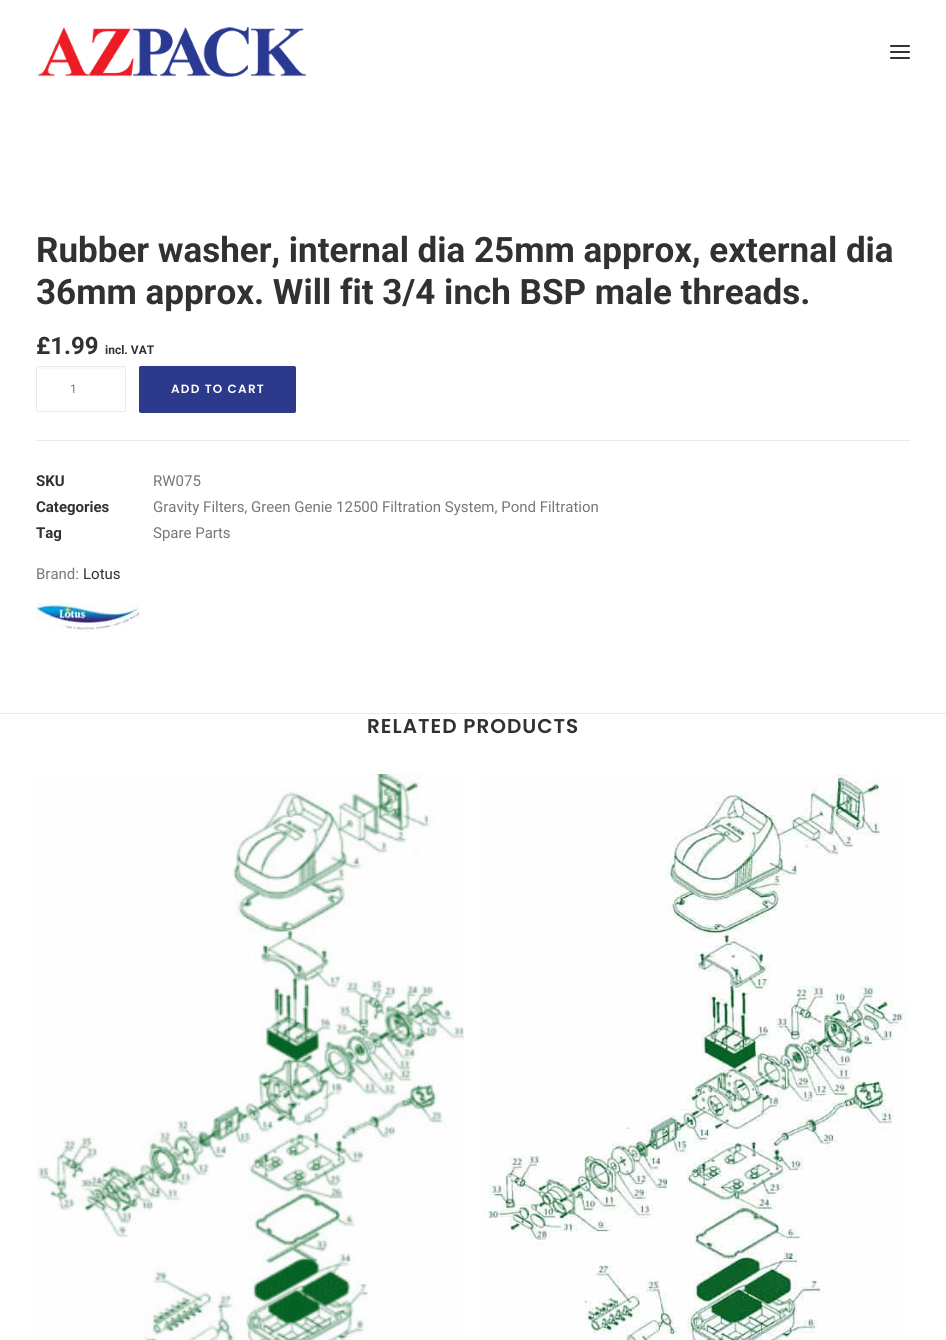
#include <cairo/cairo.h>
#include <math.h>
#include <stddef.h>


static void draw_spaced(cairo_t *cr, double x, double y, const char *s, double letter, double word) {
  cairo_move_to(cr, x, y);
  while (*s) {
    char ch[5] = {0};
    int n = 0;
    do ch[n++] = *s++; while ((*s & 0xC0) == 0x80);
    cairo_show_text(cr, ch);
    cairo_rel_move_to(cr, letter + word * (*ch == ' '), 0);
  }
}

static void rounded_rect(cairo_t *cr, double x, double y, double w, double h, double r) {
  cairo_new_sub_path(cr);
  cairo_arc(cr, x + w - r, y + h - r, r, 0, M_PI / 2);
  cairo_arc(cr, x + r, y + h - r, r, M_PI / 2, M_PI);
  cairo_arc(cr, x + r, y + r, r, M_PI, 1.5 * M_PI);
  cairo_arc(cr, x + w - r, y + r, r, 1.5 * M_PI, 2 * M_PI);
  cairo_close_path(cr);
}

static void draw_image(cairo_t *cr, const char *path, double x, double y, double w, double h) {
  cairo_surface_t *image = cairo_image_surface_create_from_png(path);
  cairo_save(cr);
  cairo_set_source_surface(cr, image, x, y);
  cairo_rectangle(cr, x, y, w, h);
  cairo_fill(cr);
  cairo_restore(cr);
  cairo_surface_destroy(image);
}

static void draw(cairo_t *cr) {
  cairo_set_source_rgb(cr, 1, 1, 1);
  cairo_paint(cr);
  draw_image(cr, "images/1.png", 38, 27, 269, 50);
  cairo_set_source_rgb(cr, 48 / 255.0, 49 / 255.0, 51 / 255.0);
  rounded_rect(cr, 890, 51, 20, 2, 1);
  cairo_fill(cr);
  rounded_rect(cr, 890, 45, 20, 2, 1);
  cairo_fill(cr);
  rounded_rect(cr, 890, 57, 20, 2, 1);
  cairo_fill(cr);
  cairo_set_source_rgb(cr, 249 / 255.0, 249 / 255.0, 249 / 255.0);
  cairo_new_path(cr);
  cairo_move_to(cr, 38, 369);
  cairo_line_to(cr, 124, 369);
  cairo_curve_to(cr, 125, 369, 125, 369, 125, 370);
  cairo_curve_to(cr, 125, 363, 119, 367, 110, 367);
  cairo_line_to(cr, 52, 367);
  cairo_curve_to(cr, 43, 367, 37, 363, 37, 370);
  cairo_curve_to(cr, 37, 369, 37, 369, 38, 369);
  cairo_close_path(cr);
  cairo_fill(cr);
  rounded_rect(cr, 36.5, 366.5, 89, 45, 1.5);
  cairo_set_source_rgb(cr, 234 / 255.0, 234 / 255.0, 234 / 255.0);
  cairo_set_line_width(cr, 1);
  cairo_stroke(cr);
  cairo_set_source_rgb(cr, 45 / 255.0, 58 / 255.0, 139 / 255.0);
  rounded_rect(cr, 139.5, 366.5, 156, 46, 1.5);
  cairo_fill_preserve(cr);
  cairo_stroke(cr);
  cairo_set_source_rgb(cr, 234 / 255.0, 234 / 255.0, 234 / 255.0);
  cairo_rectangle(cr, 36, 440, 874, 1);
  cairo_fill(cr);
  draw_image(cr, "images/2.png", 36, 603, 104, 30);
  cairo_rectangle(cr, 0, 713, 946, 1);
  cairo_fill(cr);
  draw_image(cr, "images/3.png", 36, 774, 428, 566);
  draw_image(cr, "images/4.png", 483, 774, 424, 566);
  cairo_select_font_face(cr, "Roboto", CAIRO_FONT_SLANT_NORMAL, CAIRO_FONT_WEIGHT_BOLD);
  cairo_set_font_size(cr, 35);
  cairo_set_source_rgb(cr, 48 / 255.0, 49 / 255.0, 51 / 255.0);
  cairo_move_to(cr, 36, 262);
  cairo_show_text(cr, "Rubber washer, internal dia 25mm approx, external dia");
  cairo_move_to(cr, 36, 304);
  cairo_show_text(cr, "36mm approx. Will fit 3/4 inch BSP male threads.");
  cairo_set_font_size(cr, 24);
  cairo_move_to(cr, 36, 354);
  cairo_show_text(cr, "£1.99");
  cairo_set_font_size(cr, 12);
  cairo_move_to(cr, 105, 354);
  cairo_show_text(cr, "incl. VAT");
  cairo_select_font_face(cr, "Roboto", CAIRO_FONT_SLANT_NORMAL, CAIRO_FONT_WEIGHT_NORMAL);
  cairo_set_source_rgb(cr, 119 / 255.0, 119 / 255.0, 119 / 255.0);
  cairo_move_to(cr, 70, 393);
  cairo_show_text(cr, "1");
  cairo_select_font_face(cr, "Poppins SemiBold", CAIRO_FONT_SLANT_NORMAL, CAIRO_FONT_WEIGHT_NORMAL);
  cairo_set_source_rgb(cr, 1, 1, 1);
  draw_spaced(cr, 171, 393, "ADD TO CART", 1.25, 0);
  cairo_select_font_face(cr, "Roboto", CAIRO_FONT_SLANT_NORMAL, CAIRO_FONT_WEIGHT_BOLD);
  cairo_set_font_size(cr, 15);
  cairo_set_source_rgb(cr, 48 / 255.0, 49 / 255.0, 51 / 255.0);
  cairo_move_to(cr, 36, 486);
  cairo_show_text(cr, "SKU");
  cairo_select_font_face(cr, "Roboto", CAIRO_FONT_SLANT_NORMAL, CAIRO_FONT_WEIGHT_NORMAL);
  cairo_set_source_rgb(cr, 119 / 255.0, 119 / 255.0, 119 / 255.0);
  cairo_move_to(cr, 153, 486);
  cairo_show_text(cr, "RW075");
  cairo_select_font_face(cr, "Roboto", CAIRO_FONT_SLANT_NORMAL, CAIRO_FONT_WEIGHT_BOLD);
  cairo_set_source_rgb(cr, 48 / 255.0, 49 / 255.0, 51 / 255.0);
  cairo_move_to(cr, 36, 512);
  cairo_show_text(cr, "Categories");
  cairo_select_font_face(cr, "Roboto", CAIRO_FONT_SLANT_NORMAL, CAIRO_FONT_WEIGHT_NORMAL);
  cairo_set_source_rgb(cr, 119 / 255.0, 119 / 255.0, 119 / 255.0);
  cairo_move_to(cr, 153, 512);
  cairo_show_text(cr, "Gravity Filters, Green Genie 12500 Filtration System, Pond Filtration");
  cairo_select_font_face(cr, "Roboto", CAIRO_FONT_SLANT_NORMAL, CAIRO_FONT_WEIGHT_BOLD);
  cairo_set_source_rgb(cr, 48 / 255.0, 49 / 255.0, 51 / 255.0);
  cairo_move_to(cr, 36, 538);
  cairo_show_text(cr, "Tag");
  cairo_select_font_face(cr, "Roboto", CAIRO_FONT_SLANT_NORMAL, CAIRO_FONT_WEIGHT_NORMAL);
  cairo_set_source_rgb(cr, 119 / 255.0, 119 / 255.0, 119 / 255.0);
  cairo_move_to(cr, 153, 538);
  cairo_show_text(cr, "Spare Parts");
  cairo_move_to(cr, 36, 579);
  cairo_show_text(cr, "Brand:");
  cairo_set_source_rgb(cr, 48 / 255.0, 49 / 255.0, 51 / 255.0);
  cairo_move_to(cr, 83, 579);
  cairo_show_text(cr, "Lotus");
  cairo_select_font_face(cr, "Poppins SemiBold", CAIRO_FONT_SLANT_NORMAL, CAIRO_FONT_WEIGHT_NORMAL);
  cairo_set_font_size(cr, 20);
  draw_spaced(cr, 367, 733, "RELATED PRODUCTS", 1, 0);
}

int main(void) {
  cairo_surface_t *surface = cairo_image_surface_create(CAIRO_FORMAT_RGB24, 946, 1340);
  cairo_t *cr = cairo_create(surface);
  cairo_font_options_t *options = cairo_font_options_create();
  cairo_font_options_set_hint_metrics(options, CAIRO_HINT_METRICS_OFF);
  cairo_font_options_set_hint_style(options, CAIRO_HINT_STYLE_NONE);
  cairo_set_font_options(cr, options);
  cairo_set_miter_limit(cr, 4);
  draw(cr);
  cairo_surface_write_to_png(surface, "out.png");
  cairo_font_options_destroy(options);
  cairo_destroy(cr);
  cairo_surface_destroy(surface);
  return 0;
}
